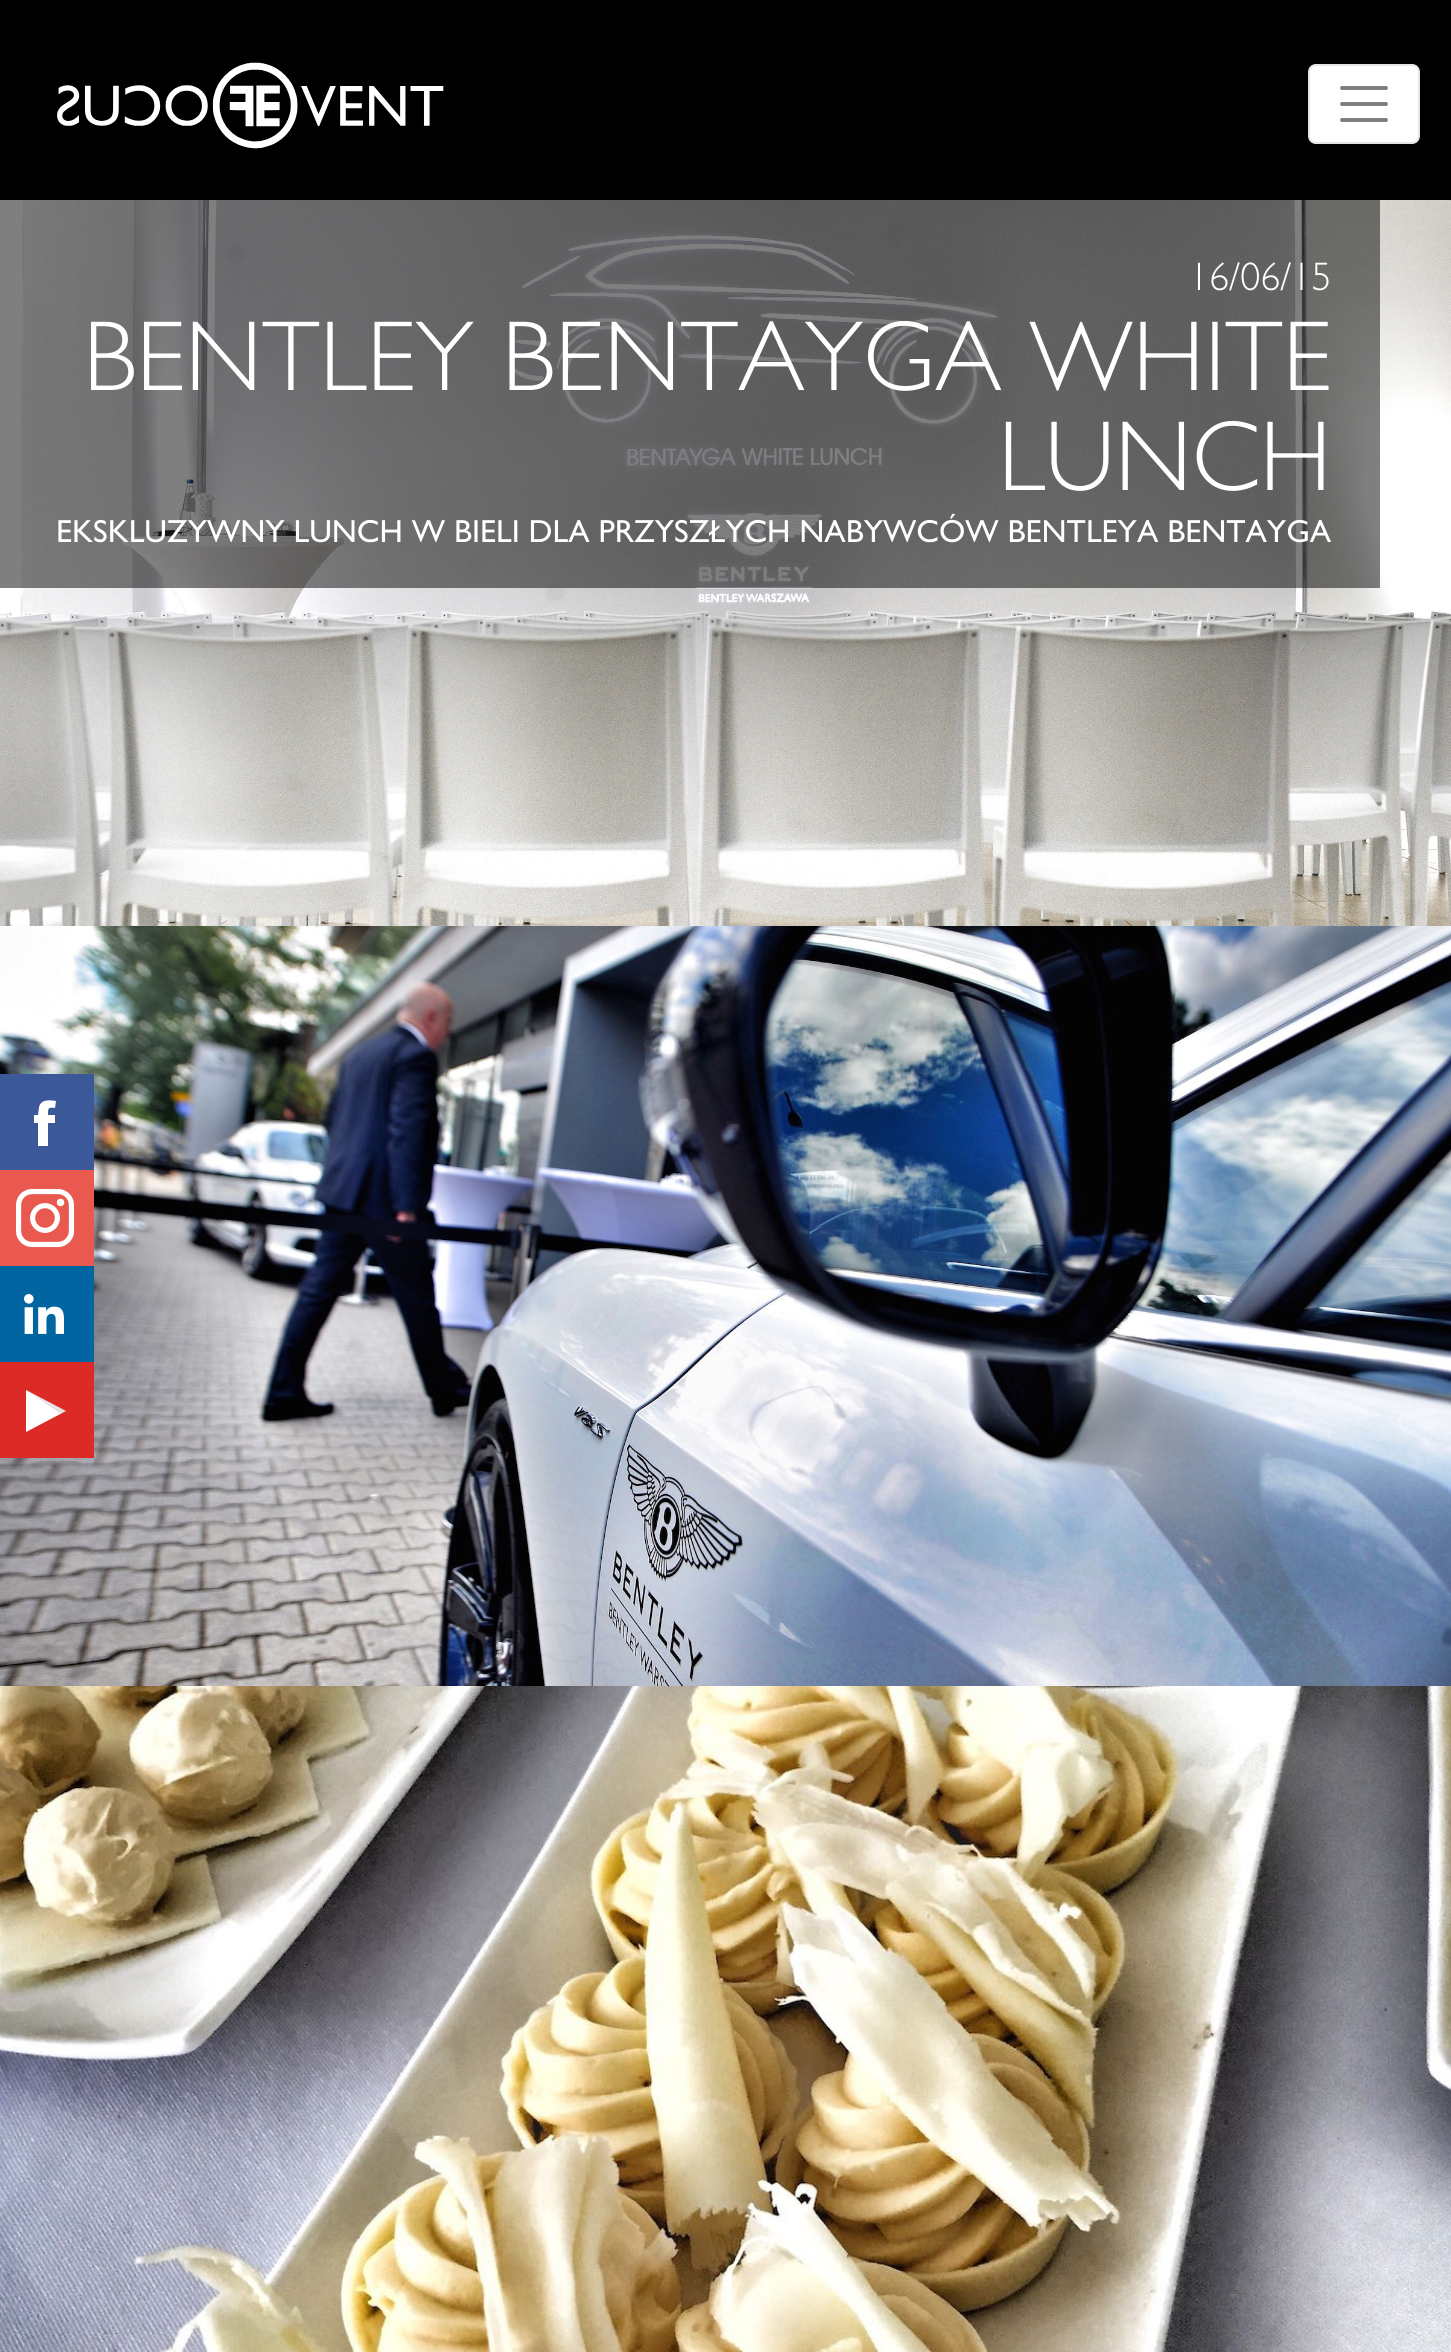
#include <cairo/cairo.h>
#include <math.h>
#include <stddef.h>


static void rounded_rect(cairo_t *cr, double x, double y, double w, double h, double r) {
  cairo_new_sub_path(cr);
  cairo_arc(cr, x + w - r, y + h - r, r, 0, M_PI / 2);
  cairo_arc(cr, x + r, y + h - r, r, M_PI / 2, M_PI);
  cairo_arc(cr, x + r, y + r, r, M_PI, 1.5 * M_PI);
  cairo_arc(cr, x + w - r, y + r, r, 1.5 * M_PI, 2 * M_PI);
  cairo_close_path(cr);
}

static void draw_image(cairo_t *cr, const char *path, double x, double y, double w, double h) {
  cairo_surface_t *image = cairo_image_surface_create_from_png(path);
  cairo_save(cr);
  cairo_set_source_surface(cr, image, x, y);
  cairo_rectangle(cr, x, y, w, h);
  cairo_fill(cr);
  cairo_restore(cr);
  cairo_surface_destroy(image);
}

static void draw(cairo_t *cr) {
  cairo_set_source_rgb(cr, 0, 0, 0);
  cairo_paint(cr);
  draw_image(cr, "images/1.png", 57, 62, 387, 87);
  cairo_set_source_rgb(cr, 1, 1, 1);
  rounded_rect(cr, 1308, 64, 112, 80, 8);
  cairo_fill(cr);
  rounded_rect(cr, 1309, 65, 110, 78, 7);
  cairo_set_source_rgba(cr, 0, 0, 0, 0.1);
  cairo_stroke(cr);
  cairo_new_path(cr);
  cairo_move_to(cr, 1342, 88);
  cairo_line_to(cr, 1386, 88);
  cairo_move_to(cr, 1342, 104);
  cairo_line_to(cr, 1386, 104);
  cairo_move_to(cr, 1342, 120);
  cairo_line_to(cr, 1386, 120);
  cairo_set_source_rgb(cr, 128 / 255.0, 128 / 255.0, 128 / 255.0);
  cairo_set_line_width(cr, 4);
  cairo_set_line_cap(cr, CAIRO_LINE_CAP_ROUND);
  cairo_stroke(cr);
  draw_image(cr, "images/5.png", 0, 926, 1451, 760);
  cairo_set_source_rgb(cr, 59 / 255.0, 89 / 255.0, 152 / 255.0);
  cairo_rectangle(cr, 0, 1074, 94, 96);
  cairo_fill(cr);
  cairo_set_source_rgb(cr, 1, 1, 1);
  cairo_new_path(cr);
  cairo_move_to(cr, 56, 1101);
  cairo_curve_to(cr, 50, 1100, 41, 1099, 39, 1107);
  cairo_line_to(cr, 38, 1115);
  cairo_line_to(cr, 34, 1115);
  cairo_line_to(cr, 34, 1123);
  cairo_line_to(cr, 38, 1123);
  cairo_line_to(cr, 38, 1146);
  cairo_line_to(cr, 48, 1146);
  cairo_line_to(cr, 48, 1123);
  cairo_line_to(cr, 55, 1123);
  cairo_line_to(cr, 55, 1115);
  cairo_line_to(cr, 48, 1115);
  cairo_curve_to(cr, 48, 1108, 48, 1107, 55, 1108);
  cairo_close_path(cr);
  cairo_fill(cr);
  cairo_set_source_rgb(cr, 233 / 255.0, 89 / 255.0, 80 / 255.0);
  cairo_rectangle(cr, 0, 1170, 94, 96);
  cairo_fill(cr);
  draw_image(cr, "images/2.png", 16, 1189, 58, 59);
  cairo_set_source_rgb(cr, 0, 101 / 255.0, 161 / 255.0);
  cairo_rectangle(cr, 0, 1266, 94, 96);
  cairo_fill(cr);
  draw_image(cr, "images/3.png", 24, 1294, 40, 40);
  cairo_set_source_rgb(cr, 220 / 255.0, 42 / 255.0, 39 / 255.0);
  cairo_rectangle(cr, 0, 1362, 94, 96);
  cairo_fill(cr);
  cairo_set_source_rgb(cr, 1, 1, 1);
  cairo_new_path(cr);
  cairo_move_to(cr, 26, 1432);
  cairo_line_to(cr, 66, 1411);
  cairo_line_to(cr, 26, 1390);
  cairo_close_path(cr);
  cairo_fill(cr);
  cairo_set_source_rgba(cr, 66 / 255.0, 0, 0, 0.12);
  cairo_set_fill_rule(cr, CAIRO_FILL_RULE_EVEN_ODD);
  cairo_new_path(cr);
  cairo_move_to(cr, 26, 1390);
  cairo_line_to(cr, 61, 1414);
  cairo_line_to(cr, 66, 1411);
  cairo_close_path(cr);
  cairo_fill(cr);
  draw_image(cr, "images/4.png", 0, 200, 1451, 726);
  cairo_set_source_rgba(cr, 0, 0, 0, 0.5);
  cairo_rectangle(cr, 0, 200, 1380, 388);
  cairo_fill(cr);
  draw_image(cr, "images/6.png", 0, 1686, 1451, 666);
  cairo_select_font_face(cr, "Gill Sans Light", CAIRO_FONT_SLANT_NORMAL, CAIRO_FONT_WEIGHT_NORMAL);
  cairo_set_font_size(cr, 40);
  cairo_set_source_rgb(cr, 1, 1, 1);
  cairo_move_to(cr, 1189, 290);
  cairo_show_text(cr, "16/06/15");
  cairo_set_font_size(cr, 100);
  cairo_move_to(cr, 83, 390);
  cairo_show_text(cr, "BENTLEY BENTAYGA WHITE");
  cairo_move_to(cr, 998, 490);
  cairo_show_text(cr, "LUNCH");
  cairo_select_font_face(cr, "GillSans", CAIRO_FONT_SLANT_NORMAL, CAIRO_FONT_WEIGHT_NORMAL);
  cairo_set_font_size(cr, 32);
  cairo_move_to(cr, 56, 542);
  cairo_show_text(cr, "EKSKLUZYWNY LUNCH W BIELI DLA PRZYSZŁYCH NABYWCÓW BENTLEYA BENTAYGA");
}

int main(void) {
  cairo_surface_t *surface = cairo_image_surface_create(CAIRO_FORMAT_RGB24, 1451, 2352);
  cairo_t *cr = cairo_create(surface);
  cairo_font_options_t *options = cairo_font_options_create();
  cairo_font_options_set_hint_metrics(options, CAIRO_HINT_METRICS_OFF);
  cairo_font_options_set_hint_style(options, CAIRO_HINT_STYLE_NONE);
  cairo_set_font_options(cr, options);
  cairo_set_miter_limit(cr, 4);
  draw(cr);
  cairo_surface_write_to_png(surface, "out.png");
  cairo_font_options_destroy(options);
  cairo_destroy(cr);
  cairo_surface_destroy(surface);
  return 0;
}
